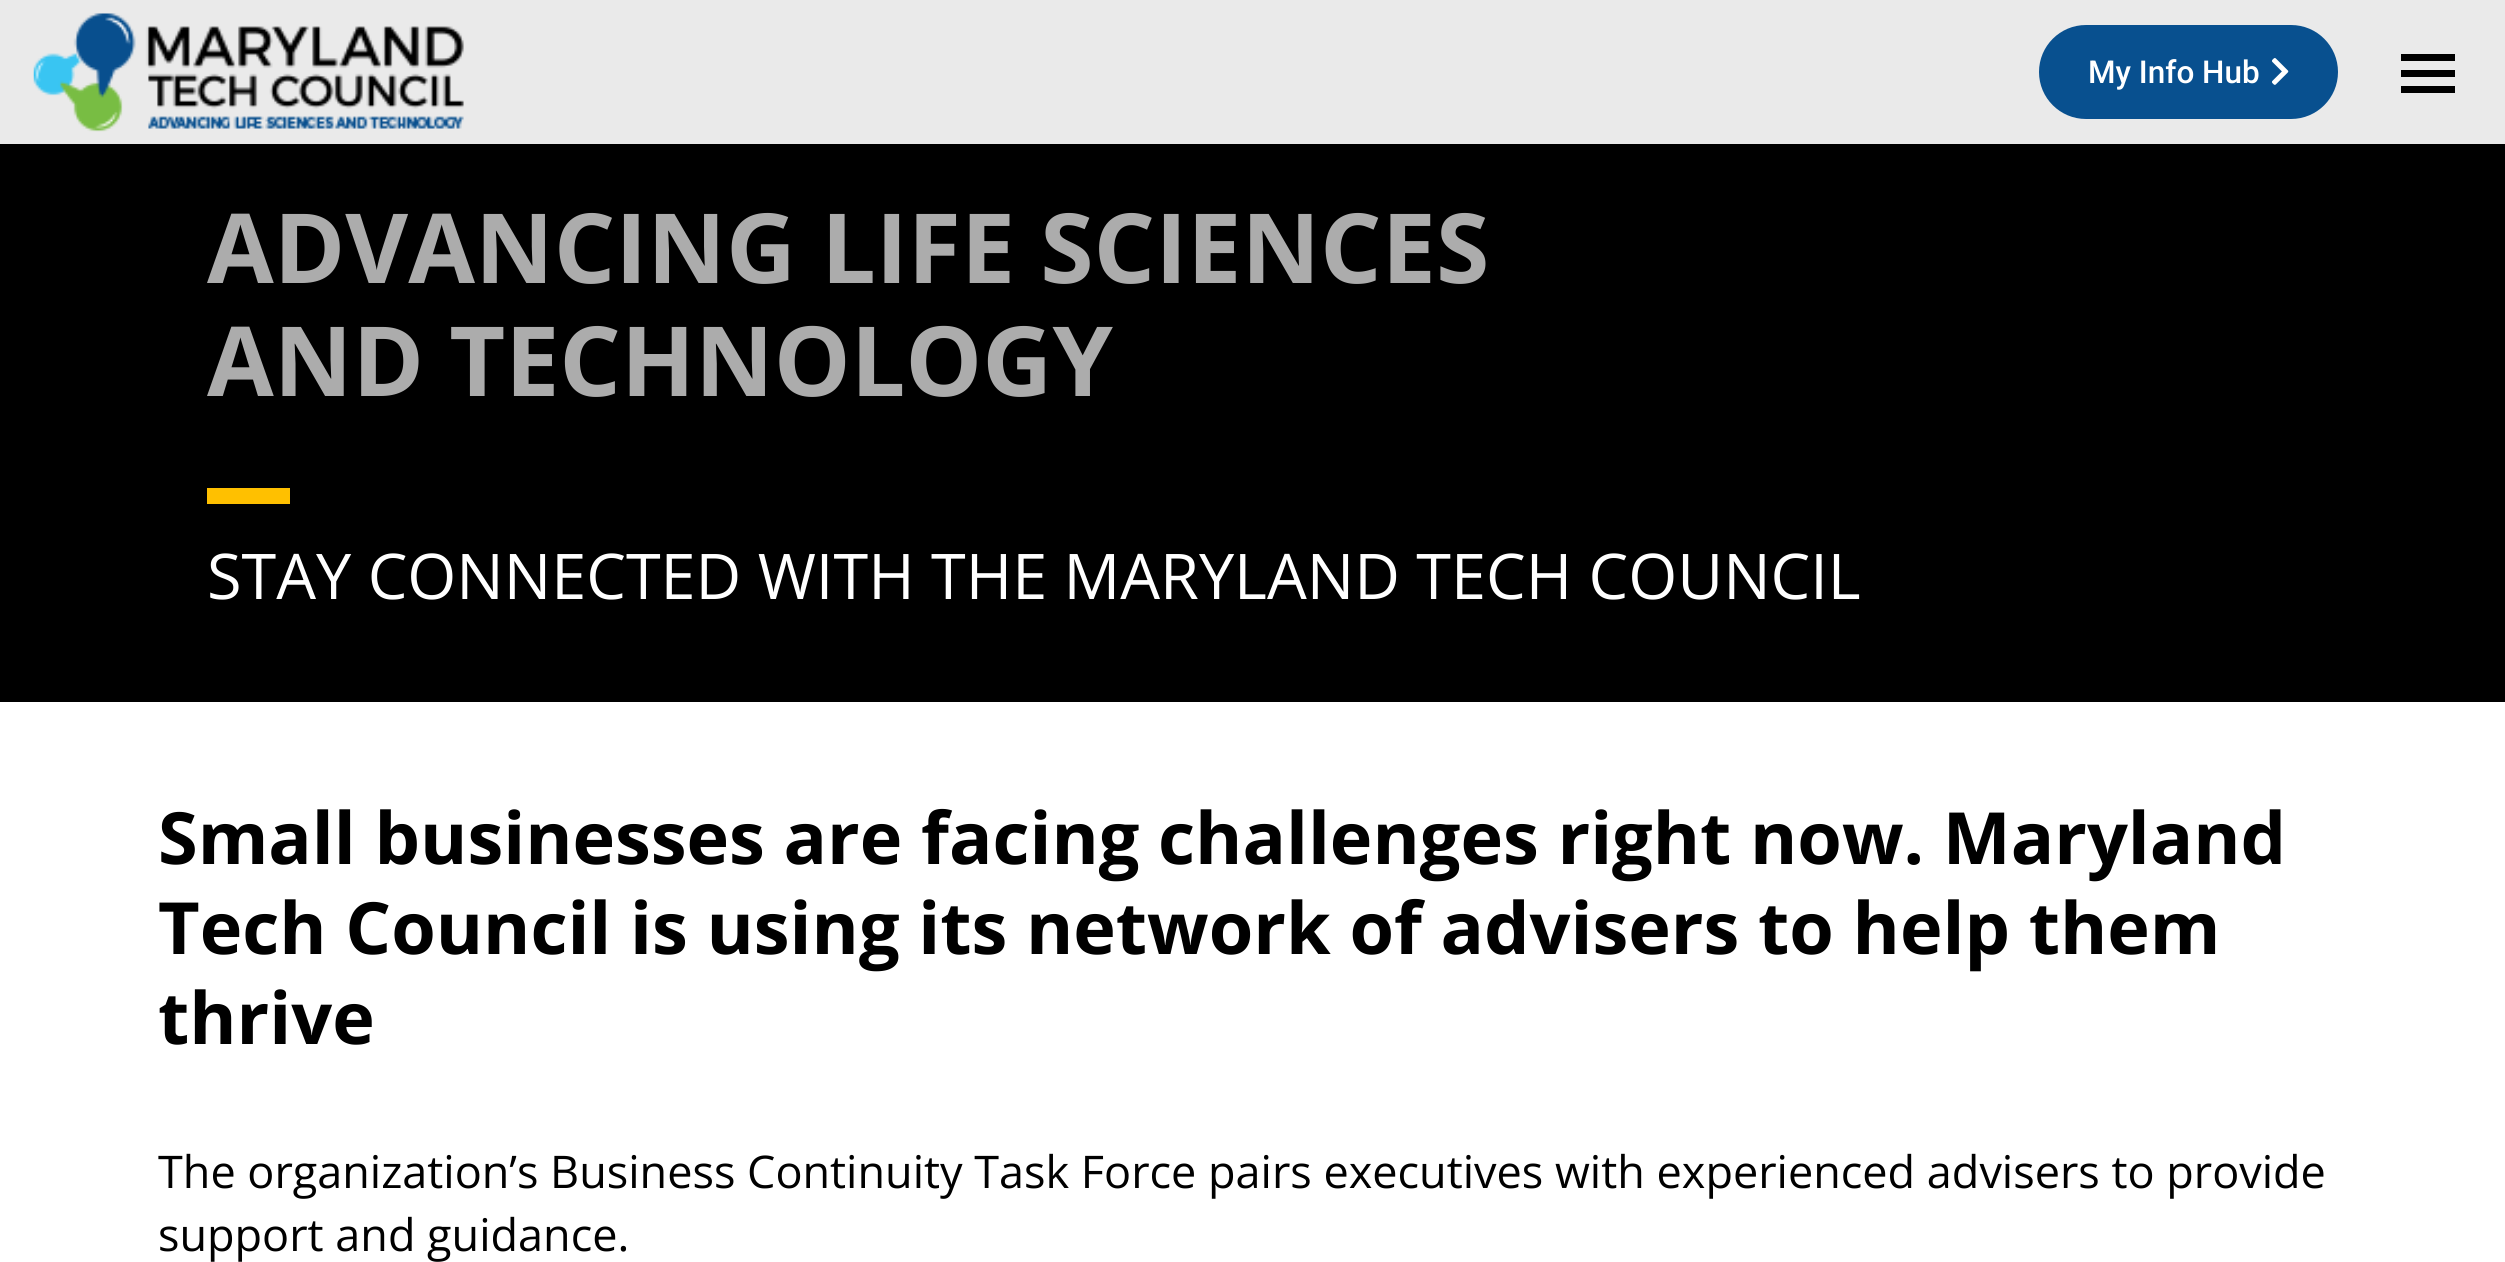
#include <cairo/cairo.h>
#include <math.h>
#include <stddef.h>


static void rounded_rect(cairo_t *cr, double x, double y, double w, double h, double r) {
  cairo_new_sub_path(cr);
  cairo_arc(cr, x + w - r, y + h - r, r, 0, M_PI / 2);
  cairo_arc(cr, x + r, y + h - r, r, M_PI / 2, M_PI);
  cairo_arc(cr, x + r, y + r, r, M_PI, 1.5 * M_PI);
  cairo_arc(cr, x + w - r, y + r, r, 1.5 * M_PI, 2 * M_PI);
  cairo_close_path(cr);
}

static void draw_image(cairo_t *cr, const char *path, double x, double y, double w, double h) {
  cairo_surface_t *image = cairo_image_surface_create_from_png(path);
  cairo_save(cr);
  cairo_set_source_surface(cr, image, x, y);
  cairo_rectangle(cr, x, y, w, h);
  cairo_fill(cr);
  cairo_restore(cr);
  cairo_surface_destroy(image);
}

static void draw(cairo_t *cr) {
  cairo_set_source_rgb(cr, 1, 1, 1);
  cairo_paint(cr);
  cairo_set_source_rgb(cr, 234 / 255.0, 234 / 255.0, 234 / 255.0);
  cairo_rectangle(cr, 0, 0, 2505, 144);
  cairo_fill(cr);
  draw_image(cr, "images/1.png", 33, 13, 431, 119);
  cairo_set_source_rgb(cr, 8 / 255.0, 80 / 255.0, 143 / 255.0);
  rounded_rect(cr, 2039, 25, 299, 94, 47);
  cairo_fill(cr);
  draw_image(cr, "images/2.png", 2272, 58, 17, 27);
  cairo_set_source_rgb(cr, 0, 0, 0);
  cairo_rectangle(cr, 2401, 54, 54, 7);
  cairo_fill(cr);
  cairo_rectangle(cr, 2401, 70, 54, 7);
  cairo_fill(cr);
  cairo_rectangle(cr, 2401, 86, 54, 7);
  cairo_fill(cr);
  cairo_rectangle(cr, 0, 144, 2505, 558);
  cairo_fill(cr);
  cairo_set_source_rgb(cr, 1, 192 / 255.0, 0);
  cairo_rectangle(cr, 207, 488, 83, 16);
  cairo_fill(cr);
  cairo_select_font_face(cr, "Roboto Medium", CAIRO_FONT_SLANT_NORMAL, CAIRO_FONT_WEIGHT_NORMAL);
  cairo_set_font_size(cr, 31.5);
  cairo_set_source_rgb(cr, 1, 1, 1);
  cairo_move_to(cr, 2088, 83);
  cairo_show_text(cr, "My Info Hub");
  cairo_select_font_face(cr, "Open Sans", CAIRO_FONT_SLANT_NORMAL, CAIRO_FONT_WEIGHT_BOLD);
  cairo_set_font_size(cr, 96.75);
  cairo_set_source_rgb(cr, 172 / 255.0, 172 / 255.0, 172 / 255.0);
  cairo_move_to(cr, 207, 283);
  cairo_show_text(cr, "ADVANCING LIFE SCIENCES");
  cairo_move_to(cr, 207, 396);
  cairo_show_text(cr, "AND TECHNOLOGY");
  cairo_select_font_face(cr, "Open Sans", CAIRO_FONT_SLANT_NORMAL, CAIRO_FONT_WEIGHT_NORMAL);
  cairo_set_font_size(cr, 63);
  cairo_set_source_rgb(cr, 1, 1, 1);
  cairo_move_to(cr, 207, 599);
  cairo_show_text(cr, "STAY CONNECTED WITH THE MARYLAND TECH COUNCIL");
  cairo_select_font_face(cr, "Open Sans", CAIRO_FONT_SLANT_NORMAL, CAIRO_FONT_WEIGHT_BOLD);
  cairo_set_font_size(cr, 72);
  cairo_set_source_rgb(cr, 0, 0, 0);
  cairo_move_to(cr, 158, 864);
  cairo_show_text(cr, "Small businesses are facing challenges right now. Maryland");
  cairo_move_to(cr, 158, 954);
  cairo_show_text(cr, "Tech Council is using its network of advisers to help them");
  cairo_move_to(cr, 158, 1044);
  cairo_show_text(cr, "thrive");
  cairo_select_font_face(cr, "Open Sans", CAIRO_FONT_SLANT_NORMAL, CAIRO_FONT_WEIGHT_NORMAL);
  cairo_set_font_size(cr, 45);
  cairo_move_to(cr, 158, 1188);
  cairo_show_text(cr, "The organization’s Business Continuity Task Force pairs executives with experienced advisers to provide");
  cairo_move_to(cr, 158, 1251);
  cairo_show_text(cr, "support and guidance.");
}

int main(void) {
  cairo_surface_t *surface = cairo_image_surface_create(CAIRO_FORMAT_RGB24, 2505, 1262);
  cairo_t *cr = cairo_create(surface);
  cairo_font_options_t *options = cairo_font_options_create();
  cairo_font_options_set_hint_metrics(options, CAIRO_HINT_METRICS_OFF);
  cairo_font_options_set_hint_style(options, CAIRO_HINT_STYLE_NONE);
  cairo_set_font_options(cr, options);
  cairo_set_miter_limit(cr, 4);
  draw(cr);
  cairo_surface_write_to_png(surface, "out.png");
  cairo_font_options_destroy(options);
  cairo_destroy(cr);
  cairo_surface_destroy(surface);
  return 0;
}
